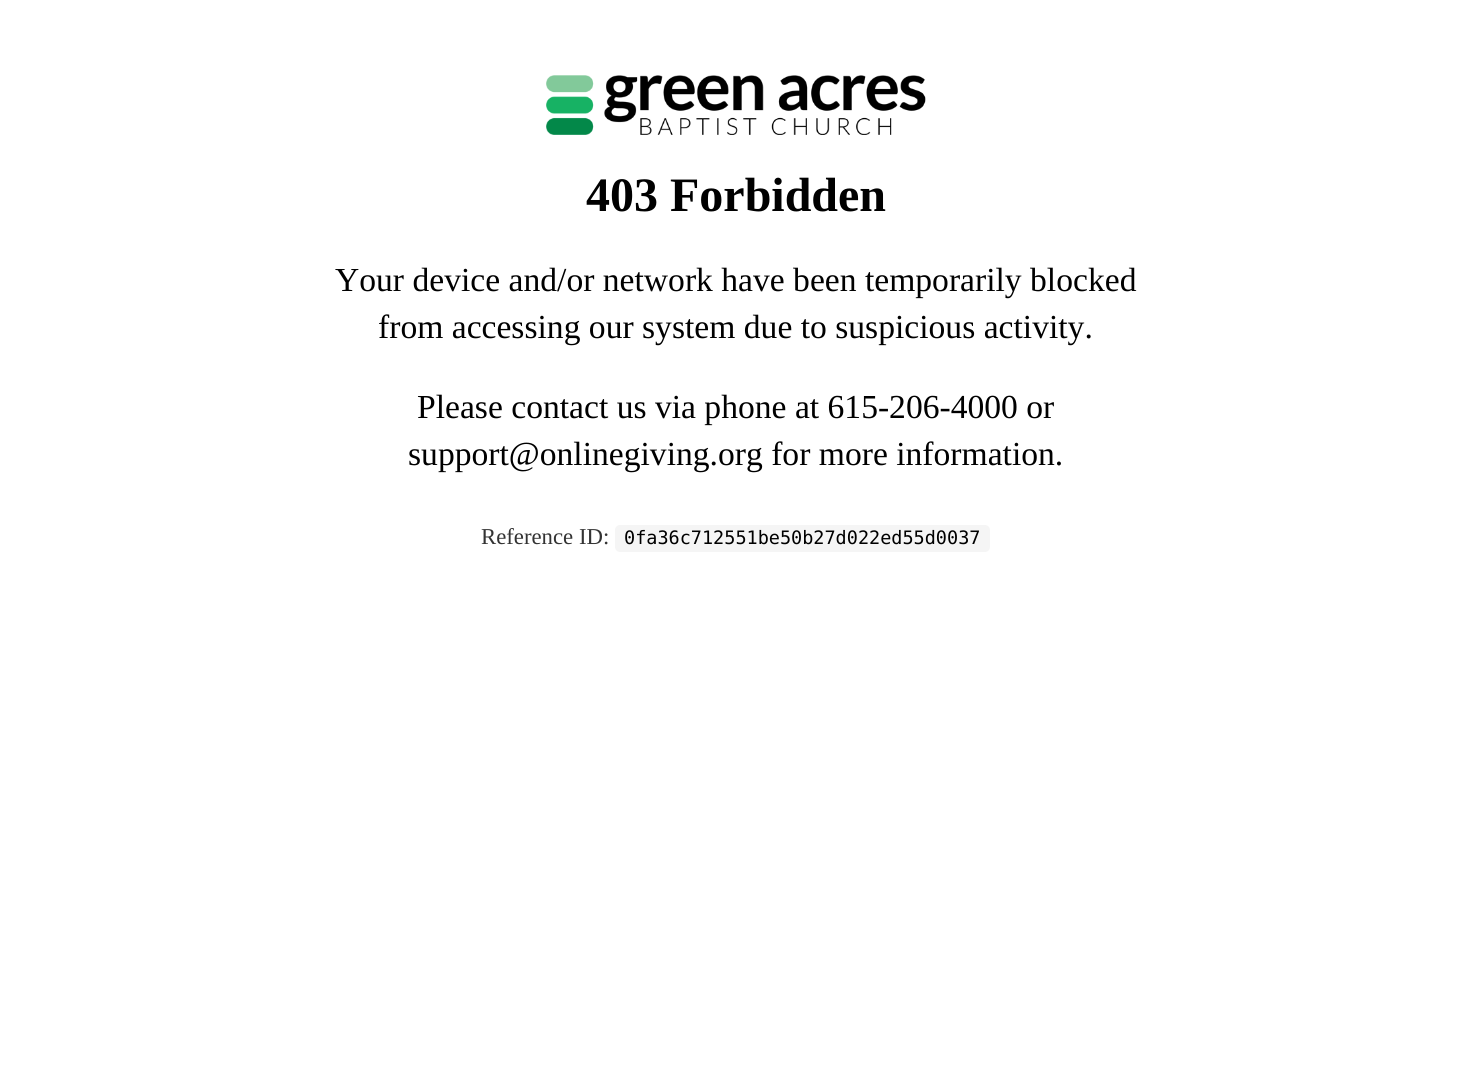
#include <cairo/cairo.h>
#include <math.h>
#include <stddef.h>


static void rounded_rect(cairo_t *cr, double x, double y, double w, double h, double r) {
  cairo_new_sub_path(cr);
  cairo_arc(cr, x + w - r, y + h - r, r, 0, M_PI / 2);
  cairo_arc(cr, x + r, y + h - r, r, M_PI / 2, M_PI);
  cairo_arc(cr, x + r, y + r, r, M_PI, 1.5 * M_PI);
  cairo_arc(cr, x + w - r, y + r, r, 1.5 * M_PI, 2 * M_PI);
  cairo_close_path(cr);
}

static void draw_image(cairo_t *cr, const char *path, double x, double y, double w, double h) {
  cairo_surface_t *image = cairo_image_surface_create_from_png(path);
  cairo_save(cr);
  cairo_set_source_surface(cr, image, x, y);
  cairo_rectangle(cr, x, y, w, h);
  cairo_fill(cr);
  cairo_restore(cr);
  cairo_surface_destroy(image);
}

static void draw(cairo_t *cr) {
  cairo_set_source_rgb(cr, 1, 1, 1);
  cairo_paint(cr);
  draw_image(cr, "images/1.png", 546, 75, 380, 60);
  cairo_set_source_rgb(cr, 245 / 255.0, 245 / 255.0, 245 / 255.0);
  rounded_rect(cr, 615, 525, 375, 27, 5);
  cairo_fill(cr);
  cairo_select_font_face(cr, "Liberation Serif", CAIRO_FONT_SLANT_NORMAL, CAIRO_FONT_WEIGHT_BOLD);
  cairo_set_font_size(cr, 48);
  cairo_set_source_rgb(cr, 0, 0, 0);
  cairo_move_to(cr, 586, 211);
  cairo_show_text(cr, "403 Forbidden");
  cairo_select_font_face(cr, "Liberation Serif", CAIRO_FONT_SLANT_NORMAL, CAIRO_FONT_WEIGHT_NORMAL);
  cairo_set_font_size(cr, 33.6);
  cairo_move_to(cr, 335, 291);
  cairo_show_text(cr, "Your device and/or network have been temporarily blocked");
  cairo_move_to(cr, 378, 338);
  cairo_show_text(cr, "from accessing our system due to suspicious activity.");
  cairo_move_to(cr, 417, 418);
  cairo_show_text(cr, "Please contact us via phone at 615-206-4000 or");
  cairo_move_to(cr, 408, 465);
  cairo_show_text(cr, "support@onlinegiving.org for more information.");
  cairo_set_font_size(cr, 22.75);
  cairo_set_source_rgb(cr, 51 / 255.0, 51 / 255.0, 51 / 255.0);
  cairo_move_to(cr, 481, 544);
  cairo_show_text(cr, "Reference ID:");
  cairo_select_font_face(cr, "DejaVu Sans Mono", CAIRO_FONT_SLANT_NORMAL, CAIRO_FONT_WEIGHT_NORMAL);
  cairo_set_font_size(cr, 18.5);
  cairo_set_source_rgb(cr, 0, 0, 0);
  cairo_move_to(cr, 624, 544);
  cairo_show_text(cr, "0fa36c712551be50b27d022ed55d0037");
}

int main(void) {
  cairo_surface_t *surface = cairo_image_surface_create(CAIRO_FORMAT_RGB24, 1471, 1088);
  cairo_t *cr = cairo_create(surface);
  cairo_font_options_t *options = cairo_font_options_create();
  cairo_font_options_set_hint_metrics(options, CAIRO_HINT_METRICS_OFF);
  cairo_font_options_set_hint_style(options, CAIRO_HINT_STYLE_NONE);
  cairo_set_font_options(cr, options);
  cairo_set_miter_limit(cr, 4);
  draw(cr);
  cairo_surface_write_to_png(surface, "out.png");
  cairo_font_options_destroy(options);
  cairo_destroy(cr);
  cairo_surface_destroy(surface);
  return 0;
}
